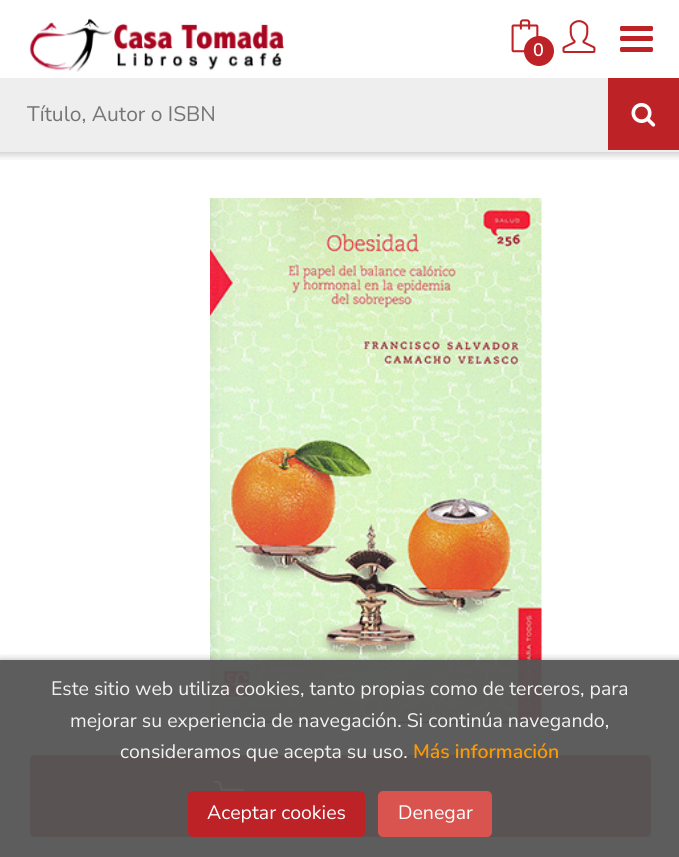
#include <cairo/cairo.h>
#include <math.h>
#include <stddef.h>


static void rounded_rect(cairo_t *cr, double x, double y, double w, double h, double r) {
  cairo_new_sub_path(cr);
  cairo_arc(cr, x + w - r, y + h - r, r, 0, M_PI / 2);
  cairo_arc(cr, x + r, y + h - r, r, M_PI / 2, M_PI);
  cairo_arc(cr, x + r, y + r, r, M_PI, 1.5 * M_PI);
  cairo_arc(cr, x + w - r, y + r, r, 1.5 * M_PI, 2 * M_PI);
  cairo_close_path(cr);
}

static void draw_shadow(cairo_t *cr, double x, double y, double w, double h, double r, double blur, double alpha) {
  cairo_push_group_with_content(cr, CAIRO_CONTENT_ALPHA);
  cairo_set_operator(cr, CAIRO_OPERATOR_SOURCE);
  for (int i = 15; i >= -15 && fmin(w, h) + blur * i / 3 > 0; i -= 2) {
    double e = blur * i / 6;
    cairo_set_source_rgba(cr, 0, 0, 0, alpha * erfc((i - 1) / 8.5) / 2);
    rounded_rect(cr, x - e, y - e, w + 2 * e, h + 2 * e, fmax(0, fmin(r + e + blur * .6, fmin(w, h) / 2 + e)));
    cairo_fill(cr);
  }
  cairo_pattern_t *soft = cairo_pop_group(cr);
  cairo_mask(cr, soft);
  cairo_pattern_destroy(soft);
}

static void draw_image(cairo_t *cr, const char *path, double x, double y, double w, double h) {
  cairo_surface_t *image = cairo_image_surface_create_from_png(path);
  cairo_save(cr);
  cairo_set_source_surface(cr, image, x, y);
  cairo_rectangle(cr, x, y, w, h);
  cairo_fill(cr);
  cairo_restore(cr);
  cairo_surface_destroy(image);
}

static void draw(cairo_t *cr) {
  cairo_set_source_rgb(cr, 1, 1, 1);
  cairo_paint(cr);
  cairo_save(cr);
  cairo_rectangle(cr, 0, 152, 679, 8);
  cairo_clip(cr);
  cairo_set_source_rgb(cr, 0, 0, 0);
  draw_shadow(cr, -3, -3, 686, 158, 0, 4, 0.2);
  cairo_restore(cr);
  draw_image(cr, "images/1.png", 29, 18, 255, 54);
  draw_image(cr, "images/2.png", 511, 19, 28, 34);
  cairo_set_source_rgb(cr, 189 / 255.0, 34 / 255.0, 38 / 255.0);
  cairo_arc(cr, 539, 51, 15, 0, 2 * M_PI);
  cairo_fill(cr);
  draw_image(cr, "images/3.png", 562, 20, 34, 33);
  rounded_rect(cr, 620, 26, 33, 5, 1.5);
  cairo_fill(cr);
  rounded_rect(cr, 620, 36, 33, 5, 1.5);
  cairo_fill(cr);
  rounded_rect(cr, 620, 47, 33, 5, 1.5);
  cairo_fill(cr);
  cairo_set_source_rgb(cr, 238 / 255.0, 238 / 255.0, 238 / 255.0);
  cairo_rectangle(cr, 0, 78, 608, 72);
  cairo_fill(cr);
  cairo_set_source_rgb(cr, 189 / 255.0, 34 / 255.0, 38 / 255.0);
  cairo_rectangle(cr, 608, 78, 71, 72);
  cairo_fill(cr);
  draw_image(cr, "images/4.png", 631, 103, 25, 24);
  cairo_set_source_rgb(cr, 238 / 255.0, 238 / 255.0, 238 / 255.0);
  cairo_rectangle(cr, 0, 150, 679, 2);
  cairo_fill(cr);
  draw_image(cr, "images/5.png", 210, 198, 332, 525);
  cairo_set_source_rgb(cr, 189 / 255.0, 34 / 255.0, 38 / 255.0);
  rounded_rect(cr, 30, 755, 621, 82, 5);
  cairo_fill(cr);
  draw_image(cr, "images/6.png", 213, 780, 32, 11);
  cairo_save(cr);
  cairo_rectangle(cr, 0, 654, 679, 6);
  cairo_clip(cr);
  cairo_set_source_rgb(cr, 0, 0, 0);
  draw_shadow(cr, 0, 660, 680, 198, 0, 4, 0.3);
  cairo_restore(cr);
  cairo_set_source_rgba(cr, 85 / 255.0, 85 / 255.0, 85 / 255.0, 0.95);
  cairo_rectangle(cr, 0, 660, 679, 197);
  cairo_fill(cr);
  cairo_set_source_rgb(cr, 189 / 255.0, 34 / 255.0, 38 / 255.0);
  rounded_rect(cr, 188, 791, 177, 46, 5);
  cairo_fill(cr);
  cairo_set_source_rgb(cr, 217 / 255.0, 83 / 255.0, 79 / 255.0);
  rounded_rect(cr, 379, 792, 112, 44, 4);
  cairo_fill_preserve(cr);
  cairo_stroke(cr);
  cairo_select_font_face(cr, "Nunito Sans SemiBold", CAIRO_FONT_SLANT_NORMAL, CAIRO_FONT_WEIGHT_NORMAL);
  cairo_set_font_size(cr, 18);
  cairo_set_source_rgb(cr, 1, 1, 1);
  cairo_move_to(cr, 533, 56);
  cairo_show_text(cr, "0");
  cairo_select_font_face(cr, "Nunito Sans", CAIRO_FONT_SLANT_NORMAL, CAIRO_FONT_WEIGHT_NORMAL);
  cairo_set_font_size(cr, 21);
  cairo_set_source_rgb(cr, 117 / 255.0, 117 / 255.0, 117 / 255.0);
  cairo_move_to(cr, 27, 121);
  cairo_show_text(cr, "Título, Autor o ISBN");
  cairo_set_font_size(cr, 19.5);
  cairo_set_source_rgb(cr, 242 / 255.0, 242 / 255.0, 242 / 255.0);
  cairo_move_to(cr, 51, 695);
  cairo_show_text(cr, "Este sitio web utiliza cookies, tanto propias como de terceros, para");
  cairo_move_to(cr, 70, 727);
  cairo_show_text(cr, "mejorar su experiencia de navegación. Si continúa navegando,");
  cairo_move_to(cr, 120, 758);
  cairo_show_text(cr, "consideramos que acepta su uso.");
  cairo_select_font_face(cr, "Nunito Sans SemiBold", CAIRO_FONT_SLANT_NORMAL, CAIRO_FONT_WEIGHT_NORMAL);
  cairo_set_source_rgb(cr, 1, 153 / 255.0, 0);
  cairo_move_to(cr, 413, 758);
  cairo_show_text(cr, "Más información");
  cairo_select_font_face(cr, "Nunito Sans", CAIRO_FONT_SLANT_NORMAL, CAIRO_FONT_WEIGHT_NORMAL);
  cairo_set_source_rgb(cr, 1, 1, 1);
  cairo_move_to(cr, 207, 819);
  cairo_show_text(cr, "Aceptar cookies");
  cairo_move_to(cr, 398, 819);
  cairo_show_text(cr, "Denegar");
}

int main(void) {
  cairo_surface_t *surface = cairo_image_surface_create(CAIRO_FORMAT_RGB24, 679, 857);
  cairo_t *cr = cairo_create(surface);
  cairo_font_options_t *options = cairo_font_options_create();
  cairo_font_options_set_hint_metrics(options, CAIRO_HINT_METRICS_OFF);
  cairo_font_options_set_hint_style(options, CAIRO_HINT_STYLE_NONE);
  cairo_set_font_options(cr, options);
  cairo_set_miter_limit(cr, 4);
  draw(cr);
  cairo_surface_write_to_png(surface, "out.png");
  cairo_font_options_destroy(options);
  cairo_destroy(cr);
  cairo_surface_destroy(surface);
  return 0;
}
